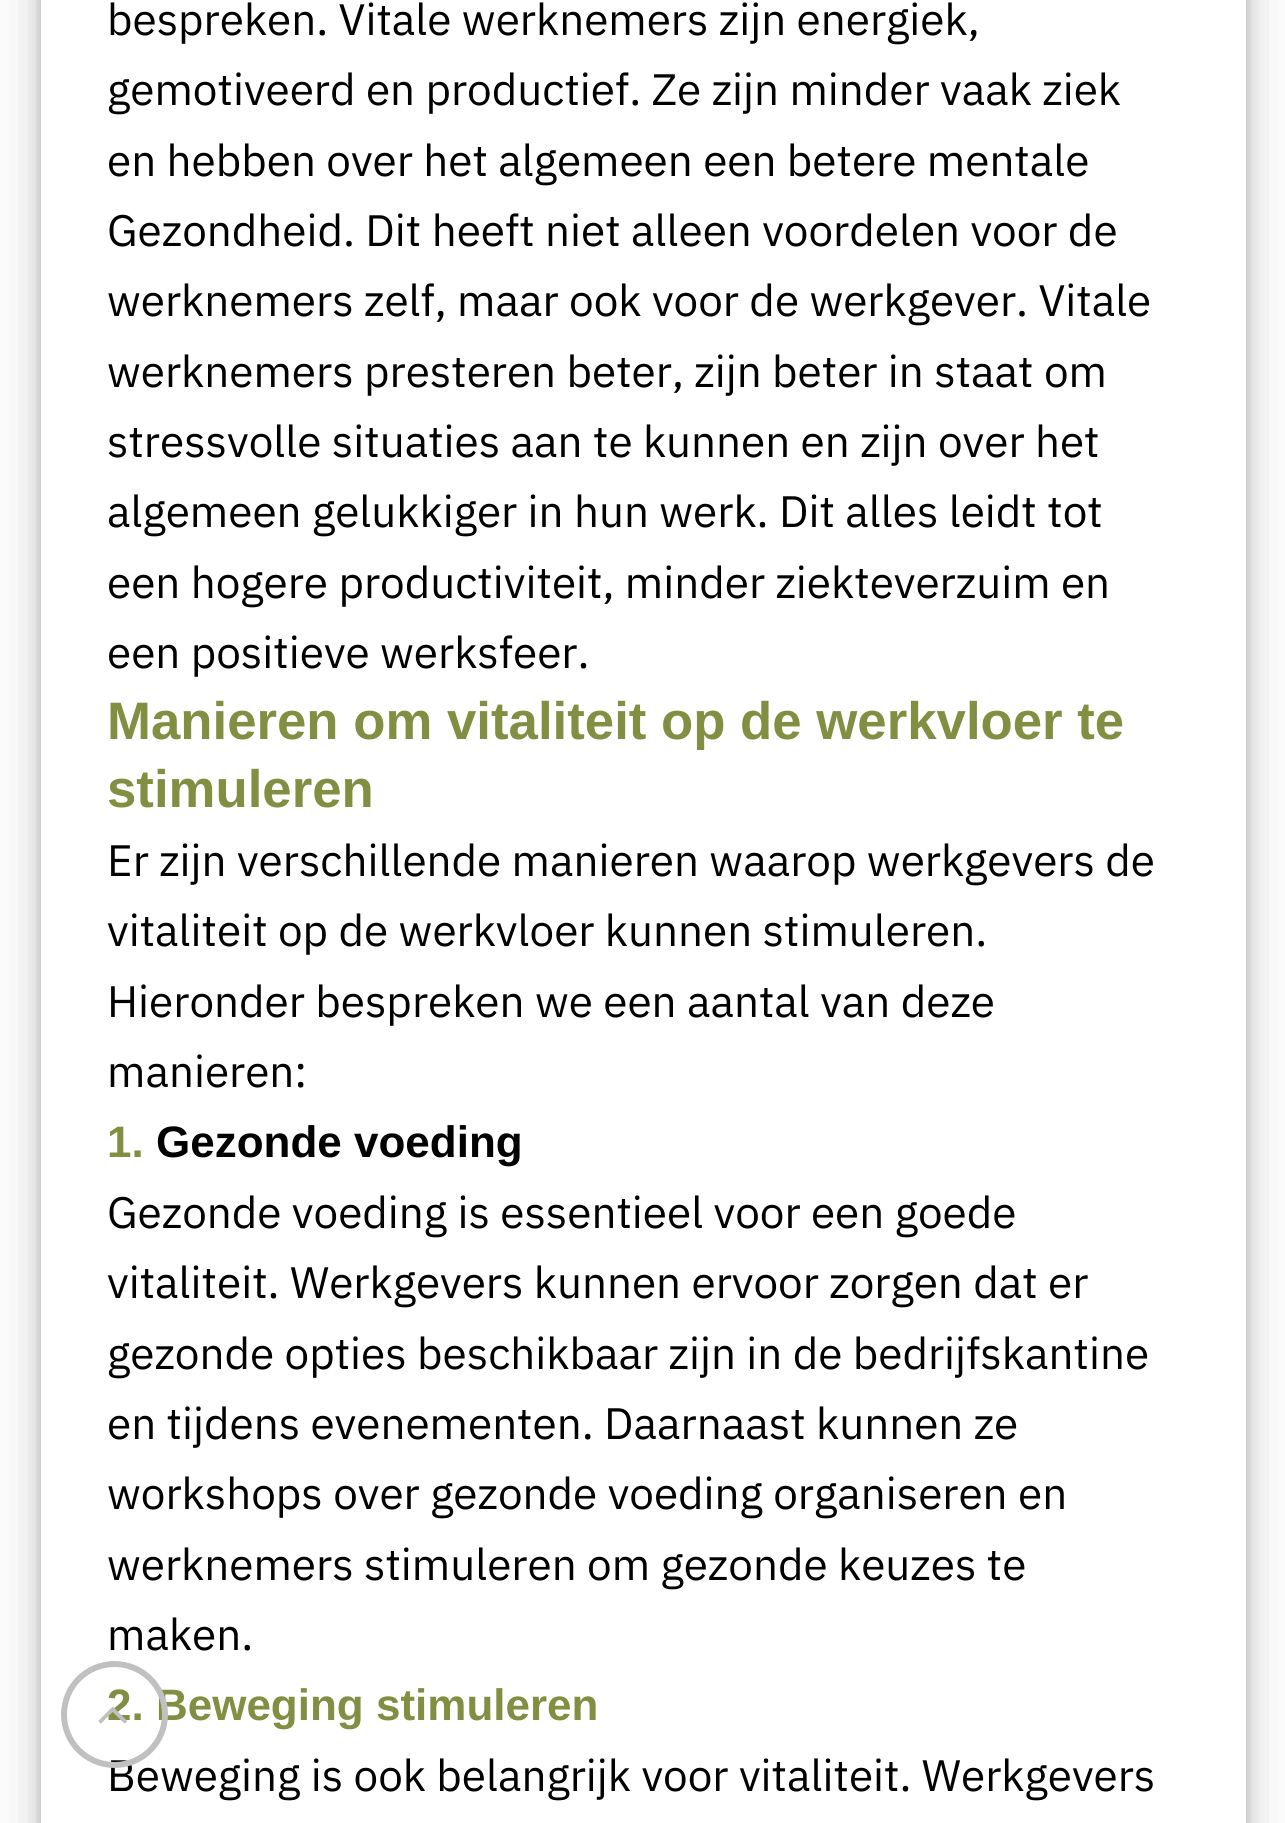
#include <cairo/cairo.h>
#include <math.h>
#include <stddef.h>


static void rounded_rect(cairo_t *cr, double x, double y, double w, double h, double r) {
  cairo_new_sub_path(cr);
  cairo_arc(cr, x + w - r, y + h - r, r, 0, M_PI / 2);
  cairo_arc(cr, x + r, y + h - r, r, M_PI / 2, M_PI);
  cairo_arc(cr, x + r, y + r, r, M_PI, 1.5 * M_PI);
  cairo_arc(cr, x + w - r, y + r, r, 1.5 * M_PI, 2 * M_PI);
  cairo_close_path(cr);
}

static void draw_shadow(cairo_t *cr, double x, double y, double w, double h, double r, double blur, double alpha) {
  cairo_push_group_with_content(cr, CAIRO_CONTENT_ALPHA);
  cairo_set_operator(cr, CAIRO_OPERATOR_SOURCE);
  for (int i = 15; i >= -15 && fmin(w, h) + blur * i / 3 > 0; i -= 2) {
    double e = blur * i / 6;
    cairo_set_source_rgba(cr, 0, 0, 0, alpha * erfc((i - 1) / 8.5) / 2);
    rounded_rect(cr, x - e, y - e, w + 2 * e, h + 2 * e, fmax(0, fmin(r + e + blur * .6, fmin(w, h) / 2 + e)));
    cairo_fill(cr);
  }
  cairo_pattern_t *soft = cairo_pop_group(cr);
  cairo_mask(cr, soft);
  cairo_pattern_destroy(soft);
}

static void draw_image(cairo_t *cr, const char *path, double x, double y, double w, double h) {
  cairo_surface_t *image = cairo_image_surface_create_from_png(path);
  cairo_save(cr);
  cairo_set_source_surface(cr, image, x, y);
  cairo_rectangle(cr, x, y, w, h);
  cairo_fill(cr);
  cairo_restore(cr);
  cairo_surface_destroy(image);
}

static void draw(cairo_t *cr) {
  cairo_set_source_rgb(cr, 1, 1, 1);
  cairo_paint(cr);
  cairo_set_source_rgb(cr, 0, 0, 0);
  draw_shadow(cr, 41, -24, 1205, 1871, 0, 8, 0.22);
  draw_shadow(cr, 41, -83, 1205, 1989, 0, 27.5, 0.19);
  cairo_set_source_rgb(cr, 1, 1, 1);
  cairo_rectangle(cr, 41, 0, 1205, 1823);
  cairo_fill(cr);
  cairo_select_font_face(cr, "IBM Plex Sans", CAIRO_FONT_SLANT_NORMAL, CAIRO_FONT_WEIGHT_NORMAL);
  cairo_set_font_size(cr, 44);
  cairo_set_source_rgb(cr, 0, 0, 0);
  cairo_move_to(cr, 107, 35);
  cairo_show_text(cr, "bespreken. Vitale werknemers zijn energiek,");
  cairo_move_to(cr, 107, 105);
  cairo_show_text(cr, "gemotiveerd en productief. Ze zijn minder vaak ziek");
  cairo_move_to(cr, 107, 176);
  cairo_show_text(cr, "en hebben over het algemeen een betere mentale");
  cairo_move_to(cr, 107, 246);
  cairo_show_text(cr, "Gezondheid. Dit heeft niet alleen voordelen voor de");
  cairo_move_to(cr, 107, 316);
  cairo_show_text(cr, "werknemers zelf, maar ook voor de werkgever. Vitale");
  cairo_move_to(cr, 107, 387);
  cairo_show_text(cr, "werknemers presteren beter, zijn beter in staat om");
  cairo_move_to(cr, 107, 457);
  cairo_show_text(cr, "stressvolle situaties aan te kunnen en zijn over het");
  cairo_move_to(cr, 107, 527);
  cairo_show_text(cr, "algemeen gelukkiger in hun werk. Dit alles leidt tot");
  cairo_move_to(cr, 107, 598);
  cairo_show_text(cr, "een hogere productiviteit, minder ziekteverzuim en");
  cairo_move_to(cr, 107, 668);
  cairo_show_text(cr, "een positieve werksfeer.");
  cairo_select_font_face(cr, "Liberation Sans", CAIRO_FONT_SLANT_NORMAL, CAIRO_FONT_WEIGHT_BOLD);
  cairo_set_font_size(cr, 52.75);
  cairo_set_source_rgb(cr, 130 / 255.0, 142 / 255.0, 66 / 255.0);
  cairo_move_to(cr, 107, 739);
  cairo_show_text(cr, "Manieren om vitaliteit op de werkvloer te");
  cairo_move_to(cr, 107, 807);
  cairo_show_text(cr, "stimuleren");
  cairo_select_font_face(cr, "IBM Plex Sans", CAIRO_FONT_SLANT_NORMAL, CAIRO_FONT_WEIGHT_NORMAL);
  cairo_set_font_size(cr, 44);
  cairo_set_source_rgb(cr, 0, 0, 0);
  cairo_move_to(cr, 107, 876);
  cairo_show_text(cr, "Er zijn verschillende manieren waarop werkgevers de");
  cairo_move_to(cr, 107, 946);
  cairo_show_text(cr, "vitaliteit op de werkvloer kunnen stimuleren.");
  cairo_move_to(cr, 107, 1017);
  cairo_show_text(cr, "Hieronder bespreken we een aantal van deze");
  cairo_move_to(cr, 107, 1087);
  cairo_show_text(cr, "manieren:");
  cairo_select_font_face(cr, "Liberation Sans", CAIRO_FONT_SLANT_NORMAL, CAIRO_FONT_WEIGHT_BOLD);
  cairo_set_source_rgb(cr, 130 / 255.0, 142 / 255.0, 66 / 255.0);
  cairo_move_to(cr, 107, 1157);
  cairo_show_text(cr, "1.");
  cairo_set_source_rgb(cr, 0, 0, 0);
  cairo_move_to(cr, 156, 1157);
  cairo_show_text(cr, "Gezonde voeding");
  cairo_select_font_face(cr, "IBM Plex Sans", CAIRO_FONT_SLANT_NORMAL, CAIRO_FONT_WEIGHT_NORMAL);
  cairo_move_to(cr, 107, 1228);
  cairo_show_text(cr, "Gezonde voeding is essentieel voor een goede");
  cairo_move_to(cr, 107, 1298);
  cairo_show_text(cr, "vitaliteit. Werkgevers kunnen ervoor zorgen dat er");
  cairo_move_to(cr, 107, 1369);
  cairo_show_text(cr, "gezonde opties beschikbaar zijn in de bedrijfskantine");
  cairo_move_to(cr, 107, 1439);
  cairo_show_text(cr, "en tijdens evenementen. Daarnaast kunnen ze");
  cairo_move_to(cr, 107, 1509);
  cairo_show_text(cr, "workshops over gezonde voeding organiseren en");
  cairo_move_to(cr, 107, 1580);
  cairo_show_text(cr, "werknemers stimuleren om gezonde keuzes te");
  cairo_move_to(cr, 107, 1650);
  cairo_show_text(cr, "maken.");
  cairo_select_font_face(cr, "Liberation Sans", CAIRO_FONT_SLANT_NORMAL, CAIRO_FONT_WEIGHT_BOLD);
  cairo_set_source_rgb(cr, 130 / 255.0, 142 / 255.0, 66 / 255.0);
  cairo_move_to(cr, 107, 1720);
  cairo_show_text(cr, "2. Beweging stimuleren");
  cairo_select_font_face(cr, "IBM Plex Sans", CAIRO_FONT_SLANT_NORMAL, CAIRO_FONT_WEIGHT_NORMAL);
  cairo_set_source_rgb(cr, 0, 0, 0);
  cairo_move_to(cr, 107, 1791);
  cairo_show_text(cr, "Beweging is ook belangrijk voor vitaliteit. Werkgevers");
  cairo_new_path(cr);
  cairo_arc(cr, 114.5, 1714.5, 50.5, 0, 2 * M_PI);
  cairo_set_source_rgb(cr, 192 / 255.0, 192 / 255.0, 192 / 255.0);
  cairo_set_line_width(cr, 6);
  cairo_stroke(cr);
  draw_image(cr, "images/1.png", 98, 1706, 29, 18);
}

int main(void) {
  cairo_surface_t *surface = cairo_image_surface_create(CAIRO_FORMAT_RGB24, 1285, 1823);
  cairo_t *cr = cairo_create(surface);
  cairo_font_options_t *options = cairo_font_options_create();
  cairo_font_options_set_hint_metrics(options, CAIRO_HINT_METRICS_OFF);
  cairo_font_options_set_hint_style(options, CAIRO_HINT_STYLE_NONE);
  cairo_set_font_options(cr, options);
  cairo_set_miter_limit(cr, 4);
  draw(cr);
  cairo_surface_write_to_png(surface, "out.png");
  cairo_font_options_destroy(options);
  cairo_destroy(cr);
  cairo_surface_destroy(surface);
  return 0;
}
